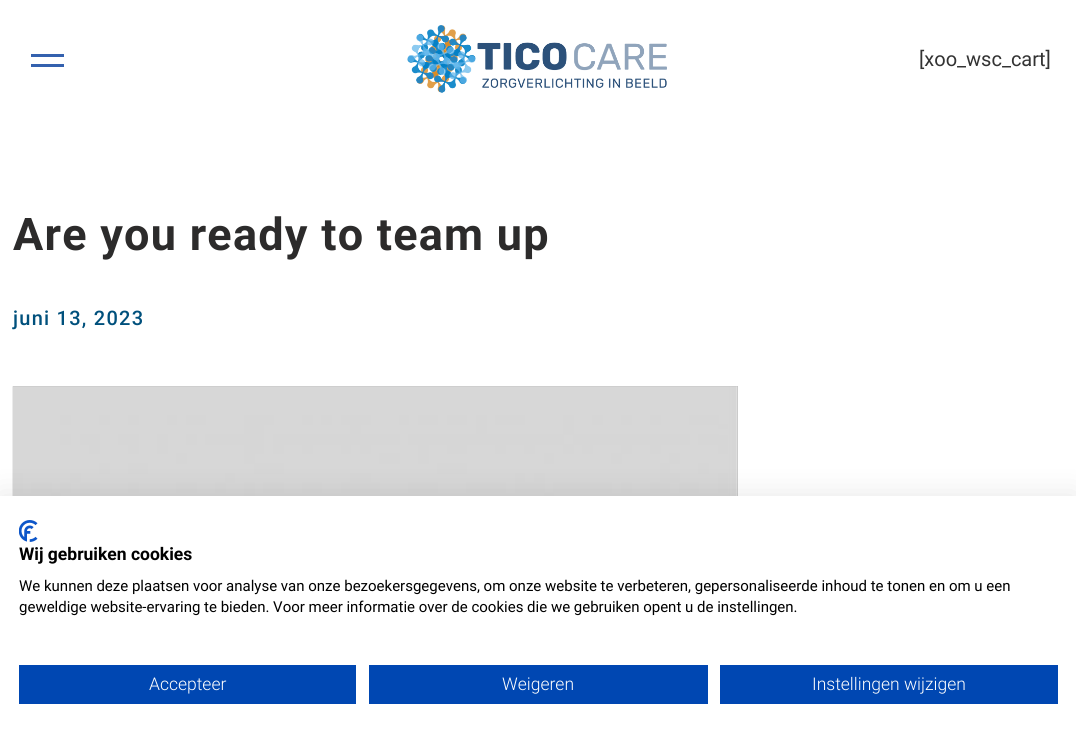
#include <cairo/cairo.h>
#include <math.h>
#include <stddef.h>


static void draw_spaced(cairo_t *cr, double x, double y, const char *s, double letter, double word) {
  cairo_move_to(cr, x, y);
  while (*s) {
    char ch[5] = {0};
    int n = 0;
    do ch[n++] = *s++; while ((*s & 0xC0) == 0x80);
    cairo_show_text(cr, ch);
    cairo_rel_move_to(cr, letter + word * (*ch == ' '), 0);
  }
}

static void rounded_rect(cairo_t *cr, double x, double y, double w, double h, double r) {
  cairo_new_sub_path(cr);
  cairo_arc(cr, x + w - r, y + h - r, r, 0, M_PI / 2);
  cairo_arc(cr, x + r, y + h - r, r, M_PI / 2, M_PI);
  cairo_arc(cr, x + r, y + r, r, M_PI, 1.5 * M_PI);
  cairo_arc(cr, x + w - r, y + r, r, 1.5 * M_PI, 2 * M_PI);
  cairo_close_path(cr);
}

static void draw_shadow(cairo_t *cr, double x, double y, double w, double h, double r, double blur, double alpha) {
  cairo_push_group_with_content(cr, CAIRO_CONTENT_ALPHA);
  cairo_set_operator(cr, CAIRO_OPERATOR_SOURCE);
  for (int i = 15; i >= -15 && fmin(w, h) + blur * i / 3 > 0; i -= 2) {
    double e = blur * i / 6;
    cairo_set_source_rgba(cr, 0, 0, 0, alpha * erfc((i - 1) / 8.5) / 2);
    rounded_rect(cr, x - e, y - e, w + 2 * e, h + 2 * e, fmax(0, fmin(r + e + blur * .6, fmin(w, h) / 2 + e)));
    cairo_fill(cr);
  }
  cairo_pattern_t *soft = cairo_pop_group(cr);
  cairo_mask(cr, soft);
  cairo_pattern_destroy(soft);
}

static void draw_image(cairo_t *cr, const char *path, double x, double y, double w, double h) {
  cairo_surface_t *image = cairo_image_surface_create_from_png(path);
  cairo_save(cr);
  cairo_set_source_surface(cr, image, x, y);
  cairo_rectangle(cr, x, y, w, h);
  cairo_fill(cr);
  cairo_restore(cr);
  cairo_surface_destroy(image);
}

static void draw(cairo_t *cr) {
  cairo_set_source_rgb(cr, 1, 1, 1);
  cairo_paint(cr);
  cairo_set_source_rgb(cr, 52 / 255.0, 97 / 255.0, 174 / 255.0);
  cairo_rectangle(cr, 31, 54, 33, 3);
  cairo_fill(cr);
  cairo_rectangle(cr, 31, 64, 33, 3);
  cairo_fill(cr);
  draw_image(cr, "images/1.png", 407, 25, 260, 68);
  cairo_set_source_rgb(cr, 179 / 255.0, 179 / 255.0, 179 / 255.0);
  cairo_rectangle(cr, 13, 386, 725, 110);
  cairo_fill(cr);
  draw_image(cr, "images/2.png", 12, 386, 726, 110);
  cairo_set_source_rgb(cr, 0, 0, 0);
  draw_shadow(cr, 0, 496, 1076, 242, 0, 15, 0.1);
  cairo_set_source_rgb(cr, 1, 1, 1);
  cairo_rectangle(cr, 0, 496, 1076, 241);
  cairo_fill(cr);
  draw_image(cr, "images/3.png", 19, 520, 19, 22);
  cairo_set_source_rgb(cr, 0, 71 / 255.0, 178 / 255.0);
  cairo_rectangle(cr, 19, 665, 337, 39);
  cairo_fill(cr);
  cairo_rectangle(cr, 369, 665, 339, 39);
  cairo_fill(cr);
  cairo_rectangle(cr, 720, 665, 338, 39);
  cairo_fill(cr);
  cairo_select_font_face(cr, "Roboto", CAIRO_FONT_SLANT_NORMAL, CAIRO_FONT_WEIGHT_NORMAL);
  cairo_set_font_size(cr, 20);
  cairo_set_source_rgb(cr, 51 / 255.0, 51 / 255.0, 51 / 255.0);
  cairo_move_to(cr, 919, 66);
  cairo_show_text(cr, "[xoo_wsc_cart]");
  cairo_select_font_face(cr, "Roboto", CAIRO_FONT_SLANT_NORMAL, CAIRO_FONT_WEIGHT_BOLD);
  cairo_set_font_size(cr, 45);
  cairo_set_source_rgb(cr, 44 / 255.0, 43 / 255.0, 43 / 255.0);
  draw_spaced(cr, 13, 250, "Are you ready to team up", 1.25, 0);
  cairo_select_font_face(cr, "Roboto Medium", CAIRO_FONT_SLANT_NORMAL, CAIRO_FONT_WEIGHT_NORMAL);
  cairo_set_font_size(cr, 20);
  cairo_set_source_rgb(cr, 0, 80 / 255.0, 124 / 255.0);
  draw_spaced(cr, 13, 325, "juni 13, 2023", 1.25, 0);
  cairo_select_font_face(cr, "Roboto", CAIRO_FONT_SLANT_NORMAL, CAIRO_FONT_WEIGHT_BOLD);
  cairo_set_font_size(cr, 17.5);
  cairo_set_source_rgb(cr, 0, 0, 0);
  cairo_move_to(cr, 19, 560);
  cairo_show_text(cr, "Wij gebruiken cookies");
  cairo_select_font_face(cr, "Roboto", CAIRO_FONT_SLANT_NORMAL, CAIRO_FONT_WEIGHT_NORMAL);
  cairo_set_font_size(cr, 15);
  cairo_move_to(cr, 19, 591);
  cairo_show_text(cr, "We kunnen deze plaatsen voor analyse van onze bezoekersgegevens, om onze website te verbeteren, gepersonaliseerde inhoud te tonen en om u een");
  cairo_move_to(cr, 19, 612);
  cairo_show_text(cr, "geweldige website-ervaring te bieden. Voor meer informatie over de cookies die we gebruiken opent u de instellingen.");
  cairo_select_font_face(cr, "Roboto Light", CAIRO_FONT_SLANT_NORMAL, CAIRO_FONT_WEIGHT_NORMAL);
  cairo_set_font_size(cr, 17.5);
  cairo_set_source_rgb(cr, 1, 1, 1);
  cairo_move_to(cr, 149, 690);
  cairo_show_text(cr, "Accepteer");
  cairo_move_to(cr, 502, 690);
  cairo_show_text(cr, "Weigeren");
  cairo_move_to(cr, 812, 690);
  cairo_show_text(cr, "Instellingen wijzigen");
}

int main(void) {
  cairo_surface_t *surface = cairo_image_surface_create(CAIRO_FORMAT_RGB24, 1076, 737);
  cairo_t *cr = cairo_create(surface);
  cairo_font_options_t *options = cairo_font_options_create();
  cairo_font_options_set_hint_metrics(options, CAIRO_HINT_METRICS_OFF);
  cairo_font_options_set_hint_style(options, CAIRO_HINT_STYLE_NONE);
  cairo_set_font_options(cr, options);
  cairo_set_miter_limit(cr, 4);
  draw(cr);
  cairo_surface_write_to_png(surface, "out.png");
  cairo_font_options_destroy(options);
  cairo_destroy(cr);
  cairo_surface_destroy(surface);
  return 0;
}
